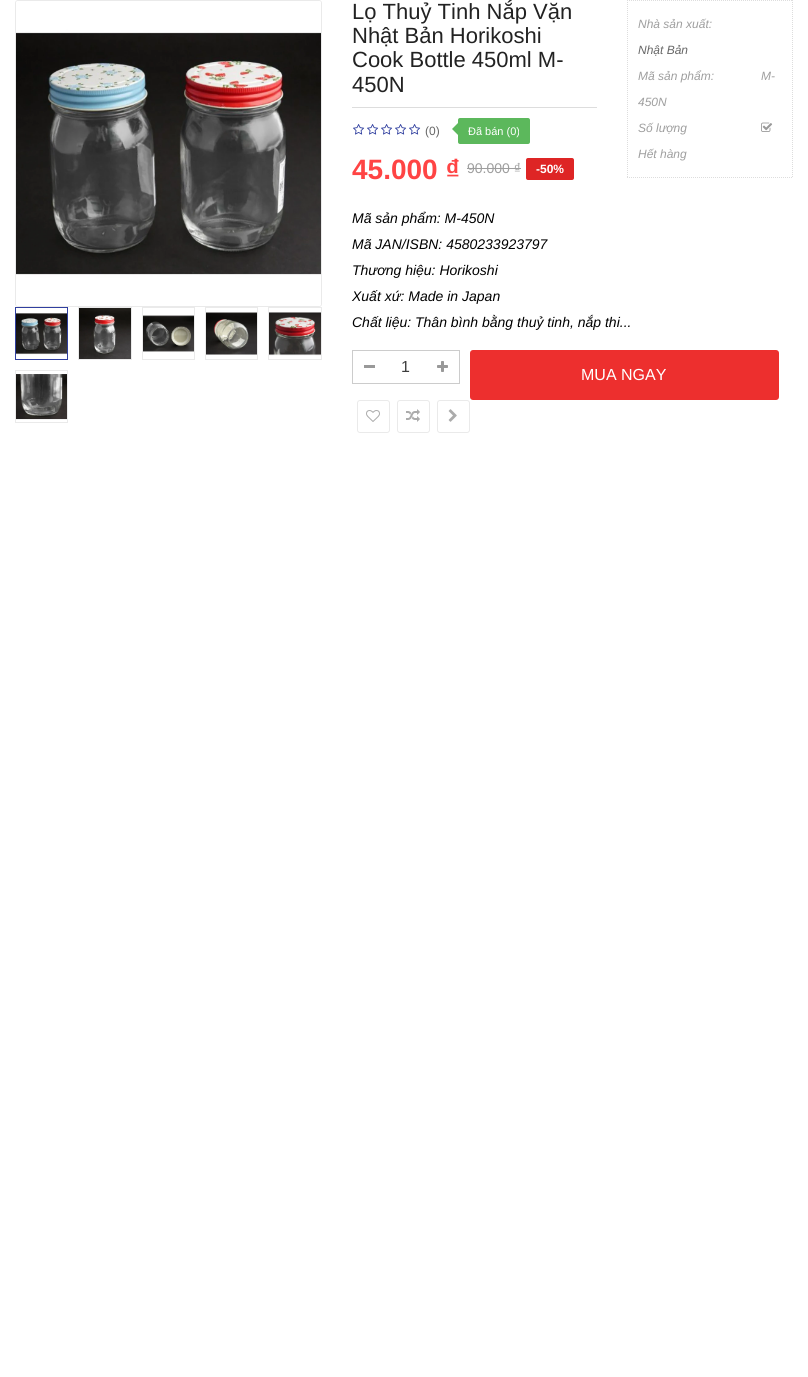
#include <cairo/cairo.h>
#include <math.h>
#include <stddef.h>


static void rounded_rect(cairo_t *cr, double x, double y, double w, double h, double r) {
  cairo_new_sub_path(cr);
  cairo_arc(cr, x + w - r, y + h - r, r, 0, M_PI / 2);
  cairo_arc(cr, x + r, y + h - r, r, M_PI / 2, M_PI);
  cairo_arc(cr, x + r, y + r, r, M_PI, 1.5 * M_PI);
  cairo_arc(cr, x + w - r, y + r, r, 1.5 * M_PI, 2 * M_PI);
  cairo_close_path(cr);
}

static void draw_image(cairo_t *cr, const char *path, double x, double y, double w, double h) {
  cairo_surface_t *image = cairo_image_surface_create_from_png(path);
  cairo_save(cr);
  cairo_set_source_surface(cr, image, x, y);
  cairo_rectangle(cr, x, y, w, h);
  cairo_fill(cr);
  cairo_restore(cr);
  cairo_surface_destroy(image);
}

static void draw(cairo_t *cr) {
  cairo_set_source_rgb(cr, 1, 1, 1);
  cairo_paint(cr);
  rounded_rect(cr, 15.5, 0.5, 306, 306, 2.5);
  cairo_set_source_rgb(cr, 234 / 255.0, 234 / 255.0, 234 / 255.0);
  cairo_set_line_width(cr, 1);
  cairo_stroke(cr);
  draw_image(cr, "images/1.png", 16, 1, 305, 305);
  cairo_rectangle(cr, 15.5, 307.5, 52, 52);
  cairo_set_source_rgb(cr, 48 / 255.0, 63 / 255.0, 159 / 255.0);
  cairo_stroke(cr);
  draw_image(cr, "images/2.png", 16, 313, 51, 42);
  cairo_rectangle(cr, 78.5, 307.5, 53, 52);
  cairo_set_source_rgb(cr, 234 / 255.0, 234 / 255.0, 234 / 255.0);
  cairo_stroke(cr);
  draw_image(cr, "images/3.png", 79, 308, 52, 51);
  cairo_rectangle(cr, 142.5, 307.5, 52, 52);
  cairo_stroke(cr);
  draw_image(cr, "images/4.png", 143, 315, 51, 37);
  cairo_rectangle(cr, 205.5, 307.5, 52, 52);
  cairo_stroke(cr);
  draw_image(cr, "images/5.png", 206, 312, 51, 43);
  cairo_rectangle(cr, 268.5, 307.5, 53, 52);
  cairo_stroke(cr);
  draw_image(cr, "images/6.png", 269, 312, 52, 44);
  cairo_rectangle(cr, 15.5, 370.5, 52, 52);
  cairo_stroke(cr);
  draw_image(cr, "images/7.png", 16, 374, 51, 46);
  cairo_set_source_rgb(cr, 221 / 255.0, 221 / 255.0, 221 / 255.0);
  cairo_rectangle(cr, 352, 107, 245, 1);
  cairo_fill(cr);
  draw_image(cr, "images/8.png", 353, 124, 12, 11);
  draw_image(cr, "images/8.png", 367, 124, 12, 11);
  draw_image(cr, "images/8.png", 381, 124, 12, 11);
  draw_image(cr, "images/8.png", 395, 124, 12, 11);
  draw_image(cr, "images/8.png", 409, 124, 12, 11);
  cairo_set_source_rgb(cr, 92 / 255.0, 184 / 255.0, 92 / 255.0);
  rounded_rect(cr, 458, 118, 72, 26, 2);
  cairo_fill(cr);
  cairo_new_path(cr);
  cairo_move_to(cr, 459, 122);
  cairo_line_to(cr, 459, 136);
  cairo_line_to(cr, 452, 129);
  cairo_close_path(cr);
  cairo_fill(cr);
  cairo_set_source_rgb(cr, 158 / 255.0, 158 / 255.0, 158 / 255.0);
  cairo_rectangle(cr, 467, 168, 54, 1);
  cairo_fill(cr);
  cairo_set_source_rgb(cr, 222 / 255.0, 37 / 255.0, 37 / 255.0);
  rounded_rect(cr, 526, 158, 48, 22, 2);
  cairo_fill(cr);
  cairo_new_path(cr);
  cairo_move_to(cr, 627, 0.5);
  cairo_line_to(cr, 793, 0.5);
  cairo_set_source_rgb(cr, 221 / 255.0, 221 / 255.0, 221 / 255.0);
  cairo_set_dash(cr, (double[]){1, 1}, 2, 0);
  cairo_stroke(cr);
  cairo_new_path(cr);
  cairo_move_to(cr, 792.5, 0);
  cairo_line_to(cr, 792.5, 178);
  cairo_stroke(cr);
  cairo_new_path(cr);
  cairo_move_to(cr, 627, 177.5);
  cairo_line_to(cr, 793, 177.5);
  cairo_stroke(cr);
  cairo_new_path(cr);
  cairo_move_to(cr, 627.5, 0);
  cairo_line_to(cr, 627.5, 178);
  cairo_stroke(cr);
  draw_image(cr, "images/9.png", 761, 122, 12, 10);
  cairo_rectangle(cr, 352.5, 350.5, 107, 33);
  cairo_set_source_rgb(cr, 204 / 255.0, 204 / 255.0, 204 / 255.0);
  cairo_set_dash(cr, NULL, 0, 0);
  cairo_stroke(cr);
  cairo_set_source_rgb(cr, 153 / 255.0, 153 / 255.0, 153 / 255.0);
  cairo_rectangle(cr, 364, 365, 11, 3);
  cairo_fill(cr);
  draw_image(cr, "images/10.png", 437, 361, 11, 11);
  cairo_set_source_rgb(cr, 237 / 255.0, 47 / 255.0, 46 / 255.0);
  rounded_rect(cr, 470, 350, 309, 50, 3);
  cairo_fill(cr);
  rounded_rect(cr, 357.5, 400.5, 32, 32, 2.5);
  cairo_set_source_rgb(cr, 234 / 255.0, 234 / 255.0, 234 / 255.0);
  cairo_stroke(cr);
  draw_image(cr, "images/11.png", 366, 410, 14, 12);
  rounded_rect(cr, 397.5, 400.5, 32, 32, 2.5);
  cairo_stroke(cr);
  draw_image(cr, "images/12.png", 406, 409, 14, 13);
  rounded_rect(cr, 437.5, 400.5, 32, 32, 2.5);
  cairo_stroke(cr);
  draw_image(cr, "images/13.png", 448, 409, 9, 13);
  cairo_select_font_face(cr, "Liberation Sans", CAIRO_FONT_SLANT_NORMAL, CAIRO_FONT_WEIGHT_NORMAL);
  cairo_set_font_size(cr, 22);
  cairo_set_source_rgb(cr, 34 / 255.0, 34 / 255.0, 34 / 255.0);
  cairo_move_to(cr, 352, 19);
  cairo_show_text(cr, "Lọ Thuỷ Tinh Nắp Vặn");
  cairo_move_to(cr, 352, 43);
  cairo_show_text(cr, "Nhật Bản Horikoshi");
  cairo_move_to(cr, 352, 67);
  cairo_show_text(cr, "Cook Bottle 450ml M-");
  cairo_move_to(cr, 352, 92);
  cairo_show_text(cr, "450N");
  cairo_set_font_size(cr, 12);
  cairo_set_source_rgb(cr, 102 / 255.0, 102 / 255.0, 102 / 255.0);
  cairo_move_to(cr, 425, 135);
  cairo_show_text(cr, "(0)");
  cairo_set_font_size(cr, 11);
  cairo_set_source_rgb(cr, 1, 1, 1);
  cairo_move_to(cr, 468, 135);
  cairo_show_text(cr, "Đã bán (0)");
  cairo_select_font_face(cr, "Liberation Sans", CAIRO_FONT_SLANT_NORMAL, CAIRO_FONT_WEIGHT_BOLD);
  cairo_set_font_size(cr, 28);
  cairo_set_source_rgb(cr, 1, 68 / 255.0, 68 / 255.0);
  cairo_move_to(cr, 352, 179);
  cairo_show_text(cr, "45.000 ₫");
  cairo_select_font_face(cr, "Liberation Sans", CAIRO_FONT_SLANT_NORMAL, CAIRO_FONT_WEIGHT_NORMAL);
  cairo_set_font_size(cr, 14);
  cairo_set_source_rgb(cr, 158 / 255.0, 158 / 255.0, 158 / 255.0);
  cairo_move_to(cr, 467, 173);
  cairo_show_text(cr, "90.000 ₫");
  cairo_select_font_face(cr, "Liberation Sans", CAIRO_FONT_SLANT_NORMAL, CAIRO_FONT_WEIGHT_BOLD);
  cairo_set_font_size(cr, 12);
  cairo_set_source_rgb(cr, 1, 1, 1);
  cairo_move_to(cr, 536, 173);
  cairo_show_text(cr, "-50%");
  cairo_select_font_face(cr, "Liberation Sans", CAIRO_FONT_SLANT_ITALIC, CAIRO_FONT_WEIGHT_NORMAL);
  cairo_set_source_rgb(cr, 158 / 255.0, 158 / 255.0, 158 / 255.0);
  cairo_move_to(cr, 638, 28);
  cairo_show_text(cr, "Nhà sản xuất:");
  cairo_set_source_rgb(cr, 102 / 255.0, 102 / 255.0, 102 / 255.0);
  cairo_move_to(cr, 638, 54);
  cairo_show_text(cr, "Nhật Bản");
  cairo_set_source_rgb(cr, 158 / 255.0, 158 / 255.0, 158 / 255.0);
  cairo_move_to(cr, 638, 80);
  cairo_show_text(cr, "Mã sản phẩm:");
  cairo_move_to(cr, 761, 80);
  cairo_show_text(cr, "M-");
  cairo_move_to(cr, 638, 106);
  cairo_show_text(cr, "450N");
  cairo_move_to(cr, 638, 132);
  cairo_show_text(cr, "Số lượng");
  cairo_move_to(cr, 638, 158);
  cairo_show_text(cr, "Hết hàng");
  cairo_set_font_size(cr, 14);
  cairo_set_source_rgb(cr, 0, 0, 0);
  cairo_move_to(cr, 352, 223);
  cairo_show_text(cr, "Mã sản phẩm: M-450N");
  cairo_move_to(cr, 352, 249);
  cairo_show_text(cr, "Mã JAN/ISBN: 4580233923797");
  cairo_move_to(cr, 352, 275);
  cairo_show_text(cr, "Thương hiệu: Horikoshi");
  cairo_move_to(cr, 352, 301);
  cairo_show_text(cr, "Xuất xứ: Made in Japan");
  cairo_move_to(cr, 352, 327);
  cairo_show_text(cr, "Chất liệu: Thân bình bằng thuỷ tinh, nắp thi...");
  cairo_select_font_face(cr, "Liberation Sans", CAIRO_FONT_SLANT_NORMAL, CAIRO_FONT_WEIGHT_NORMAL);
  cairo_set_font_size(cr, 16);
  cairo_set_source_rgb(cr, 61 / 255.0, 61 / 255.0, 61 / 255.0);
  cairo_move_to(cr, 401, 372);
  cairo_show_text(cr, "1");
  cairo_set_source_rgb(cr, 1, 1, 1);
  cairo_move_to(cr, 581, 380);
  cairo_show_text(cr, "MUA NGAY");
}

int main(void) {
  cairo_surface_t *surface = cairo_image_surface_create(CAIRO_FORMAT_RGB24, 808, 1377);
  cairo_t *cr = cairo_create(surface);
  cairo_font_options_t *options = cairo_font_options_create();
  cairo_font_options_set_hint_metrics(options, CAIRO_HINT_METRICS_OFF);
  cairo_font_options_set_hint_style(options, CAIRO_HINT_STYLE_NONE);
  cairo_set_font_options(cr, options);
  cairo_set_miter_limit(cr, 4);
  draw(cr);
  cairo_surface_write_to_png(surface, "out.png");
  cairo_font_options_destroy(options);
  cairo_destroy(cr);
  cairo_surface_destroy(surface);
  return 0;
}
